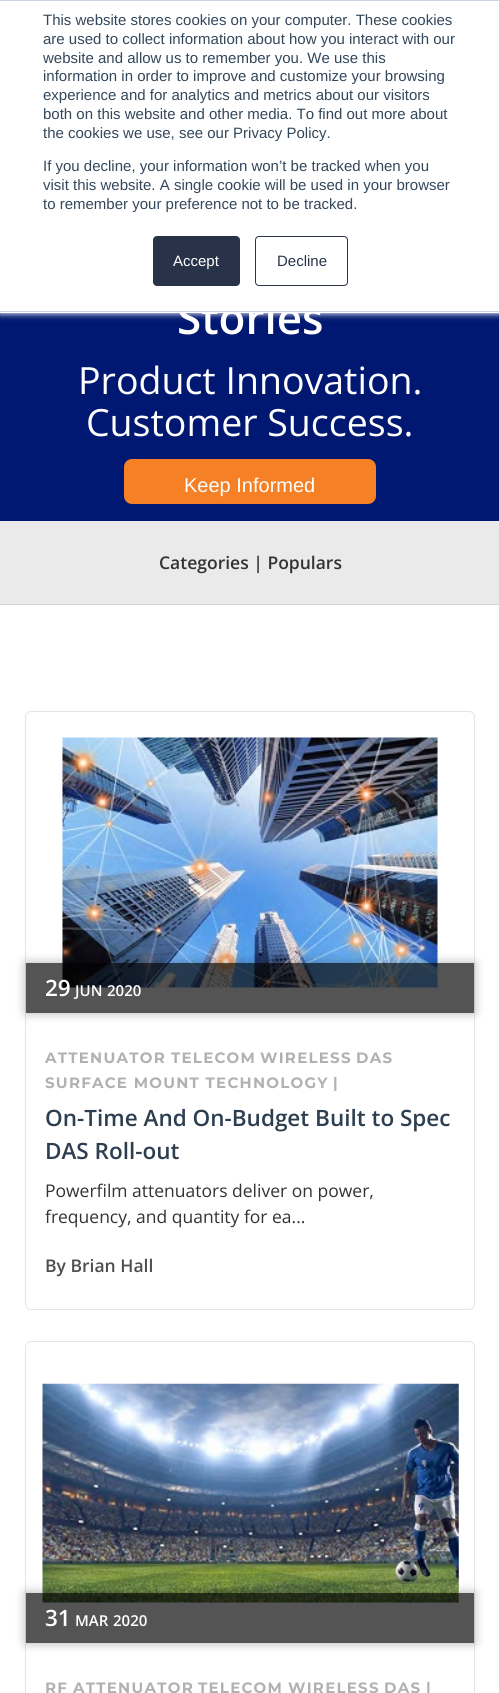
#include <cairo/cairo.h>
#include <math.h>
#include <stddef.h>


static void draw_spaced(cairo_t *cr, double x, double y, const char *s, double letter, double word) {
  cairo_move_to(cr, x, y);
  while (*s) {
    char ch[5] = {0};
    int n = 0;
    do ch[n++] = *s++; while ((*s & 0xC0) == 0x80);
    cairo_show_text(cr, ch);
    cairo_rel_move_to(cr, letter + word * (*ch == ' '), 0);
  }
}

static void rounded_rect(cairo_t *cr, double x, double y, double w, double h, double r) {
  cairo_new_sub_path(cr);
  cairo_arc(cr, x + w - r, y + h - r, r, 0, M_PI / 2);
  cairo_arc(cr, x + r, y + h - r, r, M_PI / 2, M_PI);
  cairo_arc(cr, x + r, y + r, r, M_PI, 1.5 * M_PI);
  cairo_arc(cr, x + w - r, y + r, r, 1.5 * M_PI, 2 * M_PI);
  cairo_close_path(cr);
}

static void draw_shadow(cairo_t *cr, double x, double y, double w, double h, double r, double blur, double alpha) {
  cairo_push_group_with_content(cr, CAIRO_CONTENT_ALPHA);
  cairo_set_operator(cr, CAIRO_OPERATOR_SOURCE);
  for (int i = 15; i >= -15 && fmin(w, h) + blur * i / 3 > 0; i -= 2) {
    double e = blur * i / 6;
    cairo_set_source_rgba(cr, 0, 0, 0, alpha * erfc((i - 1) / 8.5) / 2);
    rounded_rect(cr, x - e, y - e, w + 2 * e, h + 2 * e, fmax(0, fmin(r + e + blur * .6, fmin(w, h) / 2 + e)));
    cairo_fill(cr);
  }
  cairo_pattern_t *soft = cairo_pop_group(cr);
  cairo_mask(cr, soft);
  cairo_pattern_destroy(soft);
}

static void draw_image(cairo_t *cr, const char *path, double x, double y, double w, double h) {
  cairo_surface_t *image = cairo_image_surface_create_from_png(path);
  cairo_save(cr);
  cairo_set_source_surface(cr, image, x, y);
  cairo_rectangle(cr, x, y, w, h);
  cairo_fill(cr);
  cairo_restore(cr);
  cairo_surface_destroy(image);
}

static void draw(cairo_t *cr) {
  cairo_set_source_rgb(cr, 1, 1, 1);
  cairo_paint(cr);
  cairo_set_source_rgb(cr, 0, 24 / 255.0, 113 / 255.0);
  cairo_rectangle(cr, 0, 313, 499, 208);
  cairo_fill(cr);
  cairo_set_source_rgb(cr, 234 / 255.0, 240 / 255.0, 246 / 255.0);
  draw_shadow(cr, 0, 1, 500, 313, 0, 3, 1);
  cairo_set_source_rgb(cr, 1, 1, 1);
  cairo_rectangle(cr, 0, 1, 499, 312);
  cairo_fill(cr);
  cairo_set_source_rgb(cr, 203 / 255.0, 214 / 255.0, 226 / 255.0);
  cairo_rectangle(cr, 0, 0, 499, 1);
  cairo_fill(cr);
  cairo_set_source_rgb(cr, 40 / 255.0, 51 / 255.0, 74 / 255.0);
  rounded_rect(cr, 153.5, 236.5, 86, 49, 3.5);
  cairo_fill_preserve(cr);
  cairo_set_line_width(cr, 1);
  cairo_stroke(cr);
  rounded_rect(cr, 255.5, 236.5, 92, 49, 3.5);
  cairo_stroke(cr);
  cairo_set_source_rgb(cr, 245 / 255.0, 128 / 255.0, 37 / 255.0);
  rounded_rect(cr, 124, 459, 252, 45, 8);
  cairo_fill(cr);
  cairo_set_source_rgb(cr, 234 / 255.0, 234 / 255.0, 234 / 255.0);
  cairo_rectangle(cr, 0, 521, 499, 83);
  cairo_fill(cr);
  cairo_set_source_rgb(cr, 215 / 255.0, 213 / 255.0, 213 / 255.0);
  cairo_rectangle(cr, 0, 604, 499, 1);
  cairo_fill(cr);
  rounded_rect(cr, 25.5, 711.5, 449, 598, 5.5);
  cairo_set_source_rgb(cr, 228 / 255.0, 228 / 255.0, 227 / 255.0);
  cairo_stroke(cr);
  draw_image(cr, "images/1.png", 62, 737, 376, 251);
  cairo_save(cr);
  cairo_set_fill_rule(cr, CAIRO_FILL_RULE_EVEN_ODD);
  cairo_new_path(cr);
  cairo_move_to(cr, 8, 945);
  cairo_line_to(cr, 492, 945);
  cairo_line_to(cr, 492, 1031);
  cairo_line_to(cr, 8, 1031);
  cairo_close_path(cr);
  cairo_move_to(cr, 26, 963);
  cairo_line_to(cr, 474, 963);
  cairo_line_to(cr, 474, 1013);
  cairo_line_to(cr, 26, 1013);
  cairo_close_path(cr);
  cairo_clip(cr);
  cairo_set_source_rgb(cr, 0, 0, 0);
  draw_shadow(cr, 26, 963, 448, 50, 0, 5.5, 0.31);
  cairo_restore(cr);
  cairo_set_source_rgba(cr, 0, 0, 0, 0.67);
  cairo_rectangle(cr, 26, 963, 448, 50);
  cairo_fill(cr);
  rounded_rect(cr, 25.5, 1341.5, 449, 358, 5.5);
  cairo_set_source_rgb(cr, 228 / 255.0, 228 / 255.0, 227 / 255.0);
  cairo_stroke(cr);
  draw_image(cr, "images/2.png", 42, 1383, 417, 220);
  cairo_save(cr);
  cairo_set_fill_rule(cr, CAIRO_FILL_RULE_EVEN_ODD);
  cairo_new_path(cr);
  cairo_move_to(cr, 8, 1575);
  cairo_line_to(cr, 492, 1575);
  cairo_line_to(cr, 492, 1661);
  cairo_line_to(cr, 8, 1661);
  cairo_close_path(cr);
  cairo_move_to(cr, 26, 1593);
  cairo_line_to(cr, 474, 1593);
  cairo_line_to(cr, 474, 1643);
  cairo_line_to(cr, 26, 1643);
  cairo_close_path(cr);
  cairo_clip(cr);
  cairo_set_source_rgb(cr, 0, 0, 0);
  draw_shadow(cr, 26, 1593, 448, 50, 0, 5.5, 0.31);
  cairo_restore(cr);
  cairo_set_source_rgba(cr, 0, 0, 0, 0.67);
  cairo_rectangle(cr, 26, 1593, 448, 50);
  cairo_fill(cr);
  cairo_select_font_face(cr, "Liberation Sans", CAIRO_FONT_SLANT_NORMAL, CAIRO_FONT_WEIGHT_NORMAL);
  cairo_set_font_size(cr, 15);
  cairo_set_source_rgb(cr, 51 / 255.0, 71 / 255.0, 91 / 255.0);
  cairo_move_to(cr, 43, 25);
  cairo_show_text(cr, "This website stores cookies on your computer. These cookies");
  cairo_move_to(cr, 43, 44);
  cairo_show_text(cr, "are used to collect information about how you interact with our");
  cairo_move_to(cr, 43, 63);
  cairo_show_text(cr, "website and allow us to remember you. We use this");
  cairo_move_to(cr, 43, 81);
  cairo_show_text(cr, "information in order to improve and customize your browsing");
  cairo_move_to(cr, 43, 100);
  cairo_show_text(cr, "experience and for analytics and metrics about our visitors");
  cairo_move_to(cr, 43, 119);
  cairo_show_text(cr, "both on this website and other media. To find out more about");
  cairo_move_to(cr, 43, 138);
  cairo_show_text(cr, "the cookies we use, see our Privacy Policy.");
  cairo_move_to(cr, 43, 171);
  cairo_show_text(cr, "If you decline, your information won’t be tracked when you");
  cairo_move_to(cr, 43, 190);
  cairo_show_text(cr, "visit this website. A single cookie will be used in your browser");
  cairo_move_to(cr, 43, 209);
  cairo_show_text(cr, "to remember your preference not to be tracked.");
  cairo_set_source_rgb(cr, 1, 1, 1);
  cairo_move_to(cr, 173, 266);
  cairo_show_text(cr, "Accept");
  cairo_set_source_rgb(cr, 40 / 255.0, 51 / 255.0, 74 / 255.0);
  cairo_move_to(cr, 277, 266);
  cairo_show_text(cr, "Decline");
  cairo_select_font_face(cr, "Open Sans SemiBold", CAIRO_FONT_SLANT_NORMAL, CAIRO_FONT_WEIGHT_NORMAL);
  cairo_set_font_size(cr, 44);
  cairo_set_source_rgb(cr, 1, 1, 1);
  cairo_move_to(cr, 177, 334);
  cairo_show_text(cr, "Stories");
  cairo_set_source_rgb(cr, 203 / 255.0, 214 / 255.0, 226 / 255.0);
  cairo_rectangle(cr, 0, 311, 499, 1);
  cairo_fill(cr);
  cairo_select_font_face(cr, "Open Sans", CAIRO_FONT_SLANT_NORMAL, CAIRO_FONT_WEIGHT_NORMAL);
  cairo_set_font_size(cr, 37.5);
  cairo_set_source_rgb(cr, 1, 1, 1);
  cairo_move_to(cr, 78, 394);
  cairo_show_text(cr, "Product Innovation.");
  cairo_move_to(cr, 86, 436);
  cairo_show_text(cr, "Customer Success.");
  cairo_select_font_face(cr, "Liberation Sans", CAIRO_FONT_SLANT_NORMAL, CAIRO_FONT_WEIGHT_NORMAL);
  cairo_set_font_size(cr, 20);
  cairo_move_to(cr, 184, 492);
  cairo_show_text(cr, "Keep Informed");
  cairo_select_font_face(cr, "Open Sans SemiBold", CAIRO_FONT_SLANT_NORMAL, CAIRO_FONT_WEIGHT_NORMAL);
  cairo_set_font_size(cr, 17.5);
  cairo_set_source_rgb(cr, 51 / 255.0, 51 / 255.0, 51 / 255.0);
  cairo_move_to(cr, 159, 569);
  cairo_show_text(cr, "Categories | Populars");
  cairo_set_font_size(cr, 22.5);
  cairo_set_source_rgb(cr, 1, 1, 1);
  cairo_move_to(cr, 45, 996);
  cairo_show_text(cr, "29");
  cairo_set_font_size(cr, 15);
  cairo_move_to(cr, 75, 996);
  cairo_show_text(cr, "JUN");
  cairo_move_to(cr, 107, 996);
  cairo_show_text(cr, "2020");
  cairo_select_font_face(cr, "Montserrat", CAIRO_FONT_SLANT_NORMAL, CAIRO_FONT_WEIGHT_BOLD);
  cairo_set_source_rgb(cr, 177 / 255.0, 177 / 255.0, 177 / 255.0);
  draw_spaced(cr, 45, 1063, "ATTENUATOR", 1.25, 0);
  draw_spaced(cr, 171, 1063, "TELECOM", 1.25, 0);
  draw_spaced(cr, 260, 1063, "WIRELESS", 1.25, 0);
  draw_spaced(cr, 356, 1063, "DAS", 1.25, 0);
  draw_spaced(cr, 45, 1088, "SURFACE MOUNT TECHNOLOGY", 1.25, 0);
  draw_spaced(cr, 333, 1088, "|", 1.25, 0);
  cairo_select_font_face(cr, "Open Sans SemiBold", CAIRO_FONT_SLANT_NORMAL, CAIRO_FONT_WEIGHT_NORMAL);
  cairo_set_font_size(cr, 22.5);
  cairo_set_source_rgb(cr, 45 / 255.0, 62 / 255.0, 80 / 255.0);
  cairo_move_to(cr, 45, 1126);
  cairo_show_text(cr, "On-Time And On-Budget Built to Spec");
  cairo_move_to(cr, 45, 1159);
  cairo_show_text(cr, "DAS Roll-out");
  cairo_select_font_face(cr, "Open Sans", CAIRO_FONT_SLANT_NORMAL, CAIRO_FONT_WEIGHT_NORMAL);
  cairo_set_font_size(cr, 17.5);
  cairo_set_source_rgb(cr, 51 / 255.0, 51 / 255.0, 51 / 255.0);
  cairo_move_to(cr, 45, 1197);
  cairo_show_text(cr, "Powerfilm attenuators deliver on power,");
  cairo_move_to(cr, 45, 1223);
  cairo_show_text(cr, "frequency, and quantity for ea...");
  cairo_select_font_face(cr, "Open Sans SemiBold", CAIRO_FONT_SLANT_NORMAL, CAIRO_FONT_WEIGHT_NORMAL);
  cairo_set_source_rgb(cr, 78 / 255.0, 78 / 255.0, 78 / 255.0);
  cairo_move_to(cr, 45, 1272);
  cairo_show_text(cr, "By Brian Hall");
  cairo_set_font_size(cr, 22.5);
  cairo_set_source_rgb(cr, 1, 1, 1);
  cairo_move_to(cr, 45, 1626);
  cairo_show_text(cr, "31");
  cairo_set_font_size(cr, 15);
  cairo_move_to(cr, 75, 1626);
  cairo_show_text(cr, "MAR");
  cairo_move_to(cr, 113, 1626);
  cairo_show_text(cr, "2020");
  cairo_select_font_face(cr, "Montserrat", CAIRO_FONT_SLANT_NORMAL, CAIRO_FONT_WEIGHT_BOLD);
  cairo_set_source_rgb(cr, 177 / 255.0, 177 / 255.0, 177 / 255.0);
  draw_spaced(cr, 45, 1693, "RF", 1.25, 0);
  draw_spaced(cr, 73, 1693, "ATTENUATOR", 1.25, 0);
  draw_spaced(cr, 198, 1693, "TELECOM", 1.25, 0);
  draw_spaced(cr, 288, 1693, "WIRELESS", 1.25, 0);
  draw_spaced(cr, 384, 1693, "DAS", 1.25, 0);
  draw_spaced(cr, 426, 1693, "|", 1.25, 0);
}

int main(void) {
  cairo_surface_t *surface = cairo_image_surface_create(CAIRO_FORMAT_RGB24, 499, 1693);
  cairo_t *cr = cairo_create(surface);
  cairo_font_options_t *options = cairo_font_options_create();
  cairo_font_options_set_hint_metrics(options, CAIRO_HINT_METRICS_OFF);
  cairo_font_options_set_hint_style(options, CAIRO_HINT_STYLE_NONE);
  cairo_set_font_options(cr, options);
  cairo_set_miter_limit(cr, 4);
  draw(cr);
  cairo_surface_write_to_png(surface, "out.png");
  cairo_font_options_destroy(options);
  cairo_destroy(cr);
  cairo_surface_destroy(surface);
  return 0;
}
